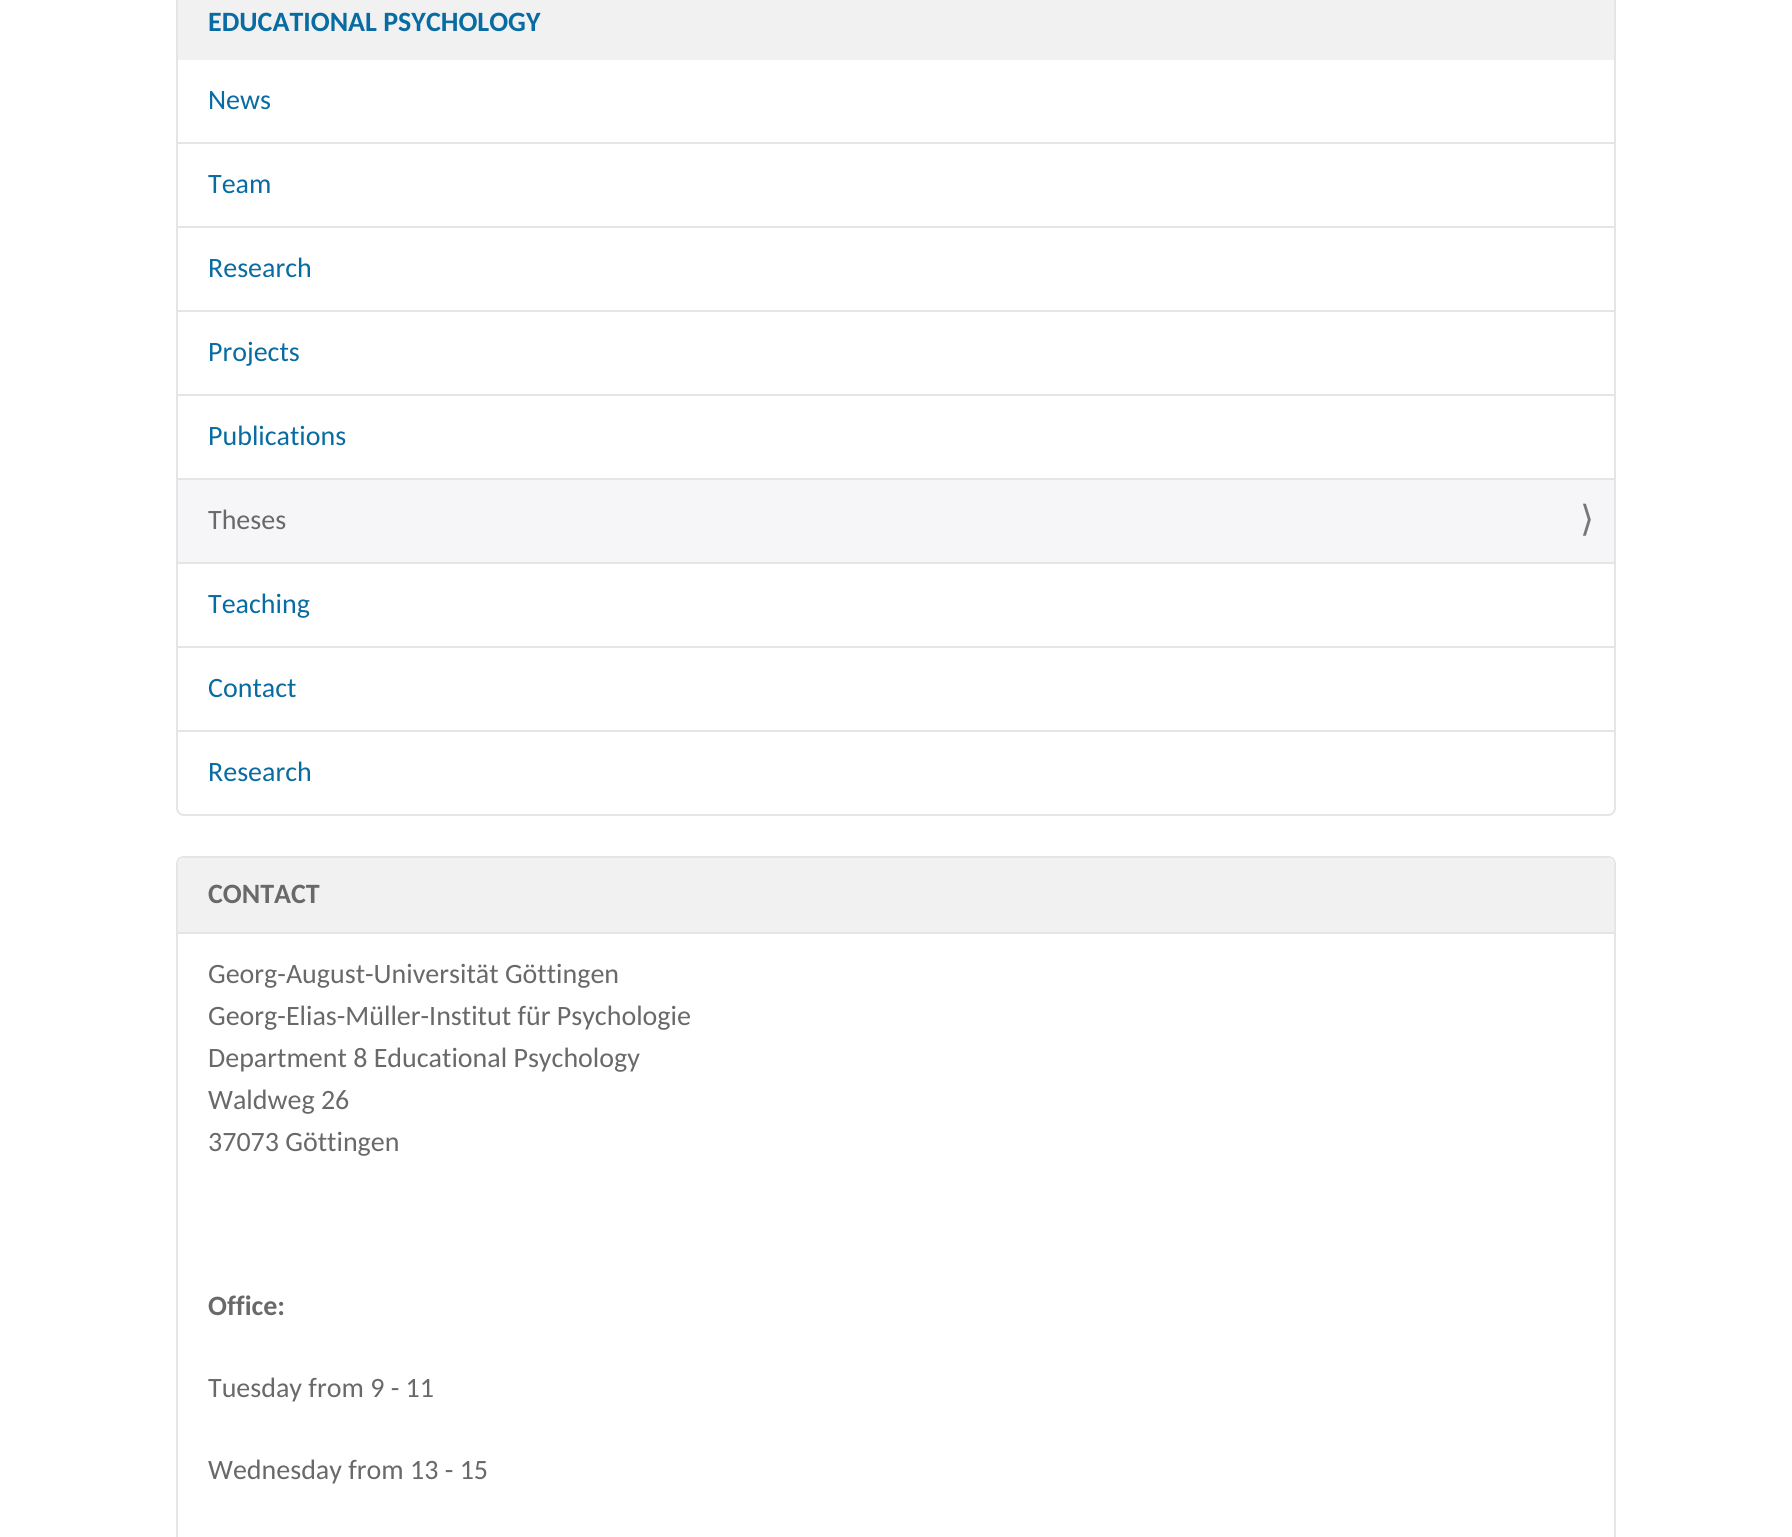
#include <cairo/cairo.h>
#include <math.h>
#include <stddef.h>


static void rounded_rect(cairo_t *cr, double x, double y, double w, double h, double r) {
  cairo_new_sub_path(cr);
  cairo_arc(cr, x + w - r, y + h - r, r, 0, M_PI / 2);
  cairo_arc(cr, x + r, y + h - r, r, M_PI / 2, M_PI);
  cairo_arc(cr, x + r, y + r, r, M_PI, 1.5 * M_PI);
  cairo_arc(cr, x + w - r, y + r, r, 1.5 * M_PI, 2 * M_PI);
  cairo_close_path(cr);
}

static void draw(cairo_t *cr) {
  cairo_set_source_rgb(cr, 1, 1, 1);
  cairo_paint(cr);
  rounded_rect(cr, 177, -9, 1438, 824, 7);
  cairo_set_source_rgb(cr, 229 / 255.0, 229 / 255.0, 229 / 255.0);
  cairo_stroke(cr);
  cairo_set_source_rgb(cr, 242 / 255.0, 241 / 255.0, 241 / 255.0);
  cairo_rectangle(cr, 178, 0, 1436, 60);
  cairo_fill(cr);
  cairo_set_source_rgb(cr, 229 / 255.0, 229 / 255.0, 229 / 255.0);
  cairo_rectangle(cr, 178, 142, 1436, 2);
  cairo_fill(cr);
  cairo_rectangle(cr, 178, 226, 1436, 2);
  cairo_fill(cr);
  cairo_rectangle(cr, 178, 310, 1436, 2);
  cairo_fill(cr);
  cairo_rectangle(cr, 178, 394, 1436, 2);
  cairo_fill(cr);
  cairo_set_source_rgb(cr, 246 / 255.0, 246 / 255.0, 249 / 255.0);
  cairo_rectangle(cr, 178, 480, 1436, 82);
  cairo_fill(cr);
  cairo_set_source_rgb(cr, 229 / 255.0, 229 / 255.0, 229 / 255.0);
  cairo_rectangle(cr, 178, 478, 1436, 2);
  cairo_fill(cr);
  cairo_rectangle(cr, 178, 562, 1436, 2);
  cairo_fill(cr);
  cairo_rectangle(cr, 178, 646, 1436, 2);
  cairo_fill(cr);
  cairo_rectangle(cr, 178, 730, 1436, 2);
  cairo_fill(cr);
  rounded_rect(cr, 177, 857, 1438, 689, 7);
  cairo_stroke(cr);
  cairo_set_source_rgb(cr, 242 / 255.0, 241 / 255.0, 241 / 255.0);
  cairo_new_path(cr);
  cairo_move_to(cr, 186, 858);
  cairo_line_to(cr, 1606, 858);
  cairo_curve_to(cr, 1610.5, 858, 1614, 861.5, 1614, 866);
  cairo_line_to(cr, 1614, 932);
  cairo_line_to(cr, 178, 932);
  cairo_line_to(cr, 178, 866);
  cairo_curve_to(cr, 178, 861.5, 181.5, 858, 186, 858);
  cairo_close_path(cr);
  cairo_fill(cr);
  cairo_set_source_rgb(cr, 229 / 255.0, 229 / 255.0, 229 / 255.0);
  cairo_rectangle(cr, 178, 932, 1436, 2);
  cairo_fill(cr);
  cairo_select_font_face(cr, "Carlito", CAIRO_FONT_SLANT_NORMAL, CAIRO_FONT_WEIGHT_BOLD);
  cairo_set_font_size(cr, 28);
  cairo_set_source_rgb(cr, 8 / 255.0, 108 / 255.0, 163 / 255.0);
  cairo_move_to(cr, 208, 31);
  cairo_show_text(cr, "EDUCATIONAL PSYCHOLOGY");
  cairo_select_font_face(cr, "Carlito", CAIRO_FONT_SLANT_NORMAL, CAIRO_FONT_WEIGHT_NORMAL);
  cairo_move_to(cr, 208, 109);
  cairo_show_text(cr, "News");
  cairo_move_to(cr, 208, 193);
  cairo_show_text(cr, "Team");
  cairo_move_to(cr, 208, 277);
  cairo_show_text(cr, "Research");
  cairo_move_to(cr, 208, 361);
  cairo_show_text(cr, "Projects");
  cairo_move_to(cr, 208, 445);
  cairo_show_text(cr, "Publications");
  cairo_set_source_rgb(cr, 105 / 255.0, 105 / 255.0, 105 / 255.0);
  cairo_move_to(cr, 208, 529);
  cairo_show_text(cr, "Theses");
  cairo_select_font_face(cr, "DejaVu Sans", CAIRO_FONT_SLANT_NORMAL, CAIRO_FONT_WEIGHT_NORMAL);
  cairo_set_font_size(cr, 36);
  cairo_set_source_rgb(cr, 119 / 255.0, 119 / 255.0, 119 / 255.0);
  cairo_move_to(cr, 1580, 531);
  cairo_show_text(cr, "⟩");
  cairo_select_font_face(cr, "Carlito", CAIRO_FONT_SLANT_NORMAL, CAIRO_FONT_WEIGHT_NORMAL);
  cairo_set_font_size(cr, 28);
  cairo_set_source_rgb(cr, 8 / 255.0, 108 / 255.0, 163 / 255.0);
  cairo_move_to(cr, 208, 613);
  cairo_show_text(cr, "Teaching");
  cairo_move_to(cr, 208, 697);
  cairo_show_text(cr, "Contact");
  cairo_move_to(cr, 208, 781);
  cairo_show_text(cr, "Research");
  cairo_select_font_face(cr, "Carlito", CAIRO_FONT_SLANT_NORMAL, CAIRO_FONT_WEIGHT_BOLD);
  cairo_set_source_rgb(cr, 105 / 255.0, 105 / 255.0, 105 / 255.0);
  cairo_move_to(cr, 208, 903);
  cairo_show_text(cr, "CONTACT");
  cairo_select_font_face(cr, "Carlito", CAIRO_FONT_SLANT_NORMAL, CAIRO_FONT_WEIGHT_NORMAL);
  cairo_move_to(cr, 208, 983);
  cairo_show_text(cr, "Georg-August-Universität Göttingen");
  cairo_move_to(cr, 208, 1025);
  cairo_show_text(cr, "Georg-Elias-Müller-Institut für Psychologie");
  cairo_move_to(cr, 208, 1067);
  cairo_show_text(cr, "Department 8 Educational Psychology");
  cairo_move_to(cr, 208, 1109);
  cairo_show_text(cr, "Waldweg 26");
  cairo_move_to(cr, 208, 1151);
  cairo_show_text(cr, "37073 Göttingen");
  cairo_select_font_face(cr, "Carlito", CAIRO_FONT_SLANT_NORMAL, CAIRO_FONT_WEIGHT_BOLD);
  cairo_move_to(cr, 208, 1315);
  cairo_show_text(cr, "Office:");
  cairo_select_font_face(cr, "Carlito", CAIRO_FONT_SLANT_NORMAL, CAIRO_FONT_WEIGHT_NORMAL);
  cairo_move_to(cr, 208, 1397);
  cairo_show_text(cr, "Tuesday from 9 - 11");
  cairo_move_to(cr, 208, 1479);
  cairo_show_text(cr, "Wednesday from 13 - 15");
}

int main(void) {
  cairo_surface_t *surface = cairo_image_surface_create(CAIRO_FORMAT_RGB24, 1792, 1537);
  cairo_t *cr = cairo_create(surface);
  cairo_font_options_t *options = cairo_font_options_create();
  cairo_font_options_set_hint_metrics(options, CAIRO_HINT_METRICS_OFF);
  cairo_font_options_set_hint_style(options, CAIRO_HINT_STYLE_NONE);
  cairo_set_font_options(cr, options);
  cairo_set_miter_limit(cr, 4);
  draw(cr);
  cairo_surface_write_to_png(surface, "out.png");
  cairo_font_options_destroy(options);
  cairo_destroy(cr);
  cairo_surface_destroy(surface);
  return 0;
}
